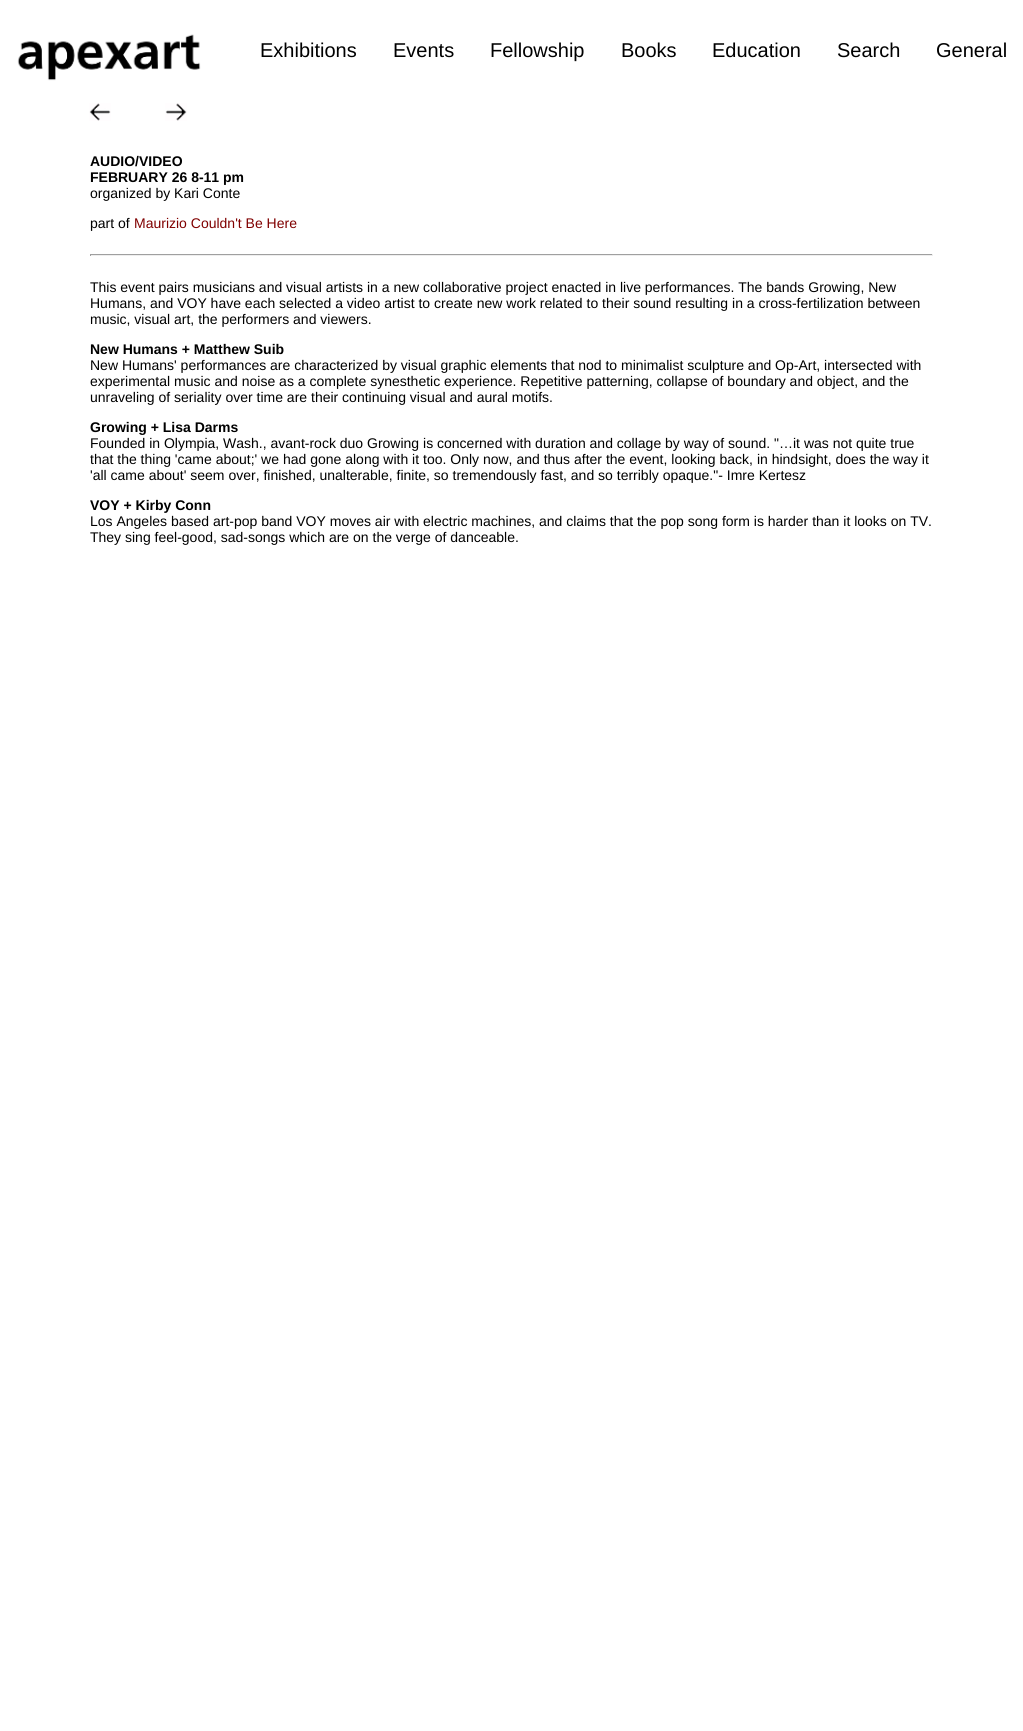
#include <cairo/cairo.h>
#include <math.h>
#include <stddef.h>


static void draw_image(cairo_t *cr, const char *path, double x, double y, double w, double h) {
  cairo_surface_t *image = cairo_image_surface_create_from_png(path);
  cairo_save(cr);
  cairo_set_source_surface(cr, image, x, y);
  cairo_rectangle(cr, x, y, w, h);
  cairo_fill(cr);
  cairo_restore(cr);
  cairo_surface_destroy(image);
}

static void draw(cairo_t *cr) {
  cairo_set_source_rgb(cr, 1, 1, 1);
  cairo_paint(cr);
  draw_image(cr, "images/1.png", 17, 34, 184, 47);
  draw_image(cr, "images/2.png", 89, 103, 22, 18);
  draw_image(cr, "images/3.png", 165, 103, 22, 18);
  cairo_set_source_rgb(cr, 159 / 255.0, 159 / 255.0, 159 / 255.0);
  cairo_rectangle(cr, 90, 254, 843, 1);
  cairo_fill(cr);
  cairo_set_source_rgb(cr, 238 / 255.0, 238 / 255.0, 238 / 255.0);
  cairo_rectangle(cr, 932, 254, 1, 2);
  cairo_fill(cr);
  cairo_rectangle(cr, 90, 255, 843, 1);
  cairo_fill(cr);
  cairo_set_source_rgb(cr, 159 / 255.0, 159 / 255.0, 159 / 255.0);
  cairo_rectangle(cr, 90, 254, 1, 2);
  cairo_fill(cr);
  cairo_select_font_face(cr, "Liberation Sans", CAIRO_FONT_SLANT_NORMAL, CAIRO_FONT_WEIGHT_NORMAL);
  cairo_set_font_size(cr, 20);
  cairo_set_source_rgb(cr, 0, 0, 0);
  cairo_move_to(cr, 260, 57);
  cairo_show_text(cr, "Exhibitions");
  cairo_move_to(cr, 393, 57);
  cairo_show_text(cr, "Events");
  cairo_move_to(cr, 490, 57);
  cairo_show_text(cr, "Fellowship");
  cairo_move_to(cr, 621, 57);
  cairo_show_text(cr, "Books");
  cairo_move_to(cr, 712, 57);
  cairo_show_text(cr, "Education");
  cairo_move_to(cr, 837, 57);
  cairo_show_text(cr, "Search");
  cairo_move_to(cr, 936, 57);
  cairo_show_text(cr, "General");
  cairo_select_font_face(cr, "Liberation Sans", CAIRO_FONT_SLANT_NORMAL, CAIRO_FONT_WEIGHT_BOLD);
  cairo_set_font_size(cr, 14);
  cairo_move_to(cr, 90, 166);
  cairo_show_text(cr, "AUDIO/VIDEO");
  cairo_move_to(cr, 90, 182);
  cairo_show_text(cr, "FEBRUARY 26 8-11 pm");
  cairo_select_font_face(cr, "Liberation Sans", CAIRO_FONT_SLANT_NORMAL, CAIRO_FONT_WEIGHT_NORMAL);
  cairo_move_to(cr, 90, 198);
  cairo_show_text(cr, "organized by Kari Conte");
  cairo_move_to(cr, 90, 228);
  cairo_show_text(cr, "part of");
  cairo_set_source_rgb(cr, 128 / 255.0, 0, 0);
  cairo_move_to(cr, 134, 228);
  cairo_show_text(cr, "Maurizio Couldn't Be Here");
  cairo_set_source_rgb(cr, 0, 0, 0);
  cairo_move_to(cr, 90, 292);
  cairo_show_text(cr, "This event pairs musicians and visual artists in a new collaborative project enacted in live performances. The bands Growing, New");
  cairo_move_to(cr, 90, 308);
  cairo_show_text(cr, "Humans, and VOY have each selected a video artist to create new work related to their sound resulting in a cross-fertilization between");
  cairo_move_to(cr, 90, 324);
  cairo_show_text(cr, "music, visual art, the performers and viewers.");
  cairo_select_font_face(cr, "Liberation Sans", CAIRO_FONT_SLANT_NORMAL, CAIRO_FONT_WEIGHT_BOLD);
  cairo_move_to(cr, 90, 354);
  cairo_show_text(cr, "New Humans + Matthew Suib");
  cairo_select_font_face(cr, "Liberation Sans", CAIRO_FONT_SLANT_NORMAL, CAIRO_FONT_WEIGHT_NORMAL);
  cairo_move_to(cr, 90, 370);
  cairo_show_text(cr, "New Humans' performances are characterized by visual graphic elements that nod to minimalist sculpture and Op-Art, intersected with");
  cairo_move_to(cr, 90, 386);
  cairo_show_text(cr, "experimental music and noise as a complete synesthetic experience. Repetitive patterning, collapse of boundary and object, and the");
  cairo_move_to(cr, 90, 402);
  cairo_show_text(cr, "unraveling of seriality over time are their continuing visual and aural motifs.");
  cairo_select_font_face(cr, "Liberation Sans", CAIRO_FONT_SLANT_NORMAL, CAIRO_FONT_WEIGHT_BOLD);
  cairo_move_to(cr, 90, 432);
  cairo_show_text(cr, "Growing + Lisa Darms");
  cairo_select_font_face(cr, "Liberation Sans", CAIRO_FONT_SLANT_NORMAL, CAIRO_FONT_WEIGHT_NORMAL);
  cairo_move_to(cr, 90, 448);
  cairo_show_text(cr, "Founded in Olympia, Wash., avant-rock duo Growing is concerned with duration and collage by way of sound. \"…it was not quite true");
  cairo_move_to(cr, 90, 464);
  cairo_show_text(cr, "that the thing 'came about;' we had gone along with it too. Only now, and thus after the event, looking back, in hindsight, does the way it");
  cairo_move_to(cr, 90, 480);
  cairo_show_text(cr, "'all came about' seem over, finished, unalterable, finite, so tremendously fast, and so terribly opaque.\"- Imre Kertesz");
  cairo_select_font_face(cr, "Liberation Sans", CAIRO_FONT_SLANT_NORMAL, CAIRO_FONT_WEIGHT_BOLD);
  cairo_move_to(cr, 90, 510);
  cairo_show_text(cr, "VOY + Kirby Conn");
  cairo_select_font_face(cr, "Liberation Sans", CAIRO_FONT_SLANT_NORMAL, CAIRO_FONT_WEIGHT_NORMAL);
  cairo_move_to(cr, 90, 526);
  cairo_show_text(cr, "Los Angeles based art-pop band VOY moves air with electric machines, and claims that the pop song form is harder than it looks on TV.");
  cairo_move_to(cr, 90, 542);
  cairo_show_text(cr, "They sing feel-good, sad-songs which are on the verge of danceable.");
}

int main(void) {
  cairo_surface_t *surface = cairo_image_surface_create(CAIRO_FORMAT_RGB24, 1023, 1731);
  cairo_t *cr = cairo_create(surface);
  cairo_font_options_t *options = cairo_font_options_create();
  cairo_font_options_set_hint_metrics(options, CAIRO_HINT_METRICS_OFF);
  cairo_font_options_set_hint_style(options, CAIRO_HINT_STYLE_NONE);
  cairo_set_font_options(cr, options);
  cairo_set_miter_limit(cr, 4);
  draw(cr);
  cairo_surface_write_to_png(surface, "out.png");
  cairo_font_options_destroy(options);
  cairo_destroy(cr);
  cairo_surface_destroy(surface);
  return 0;
}
